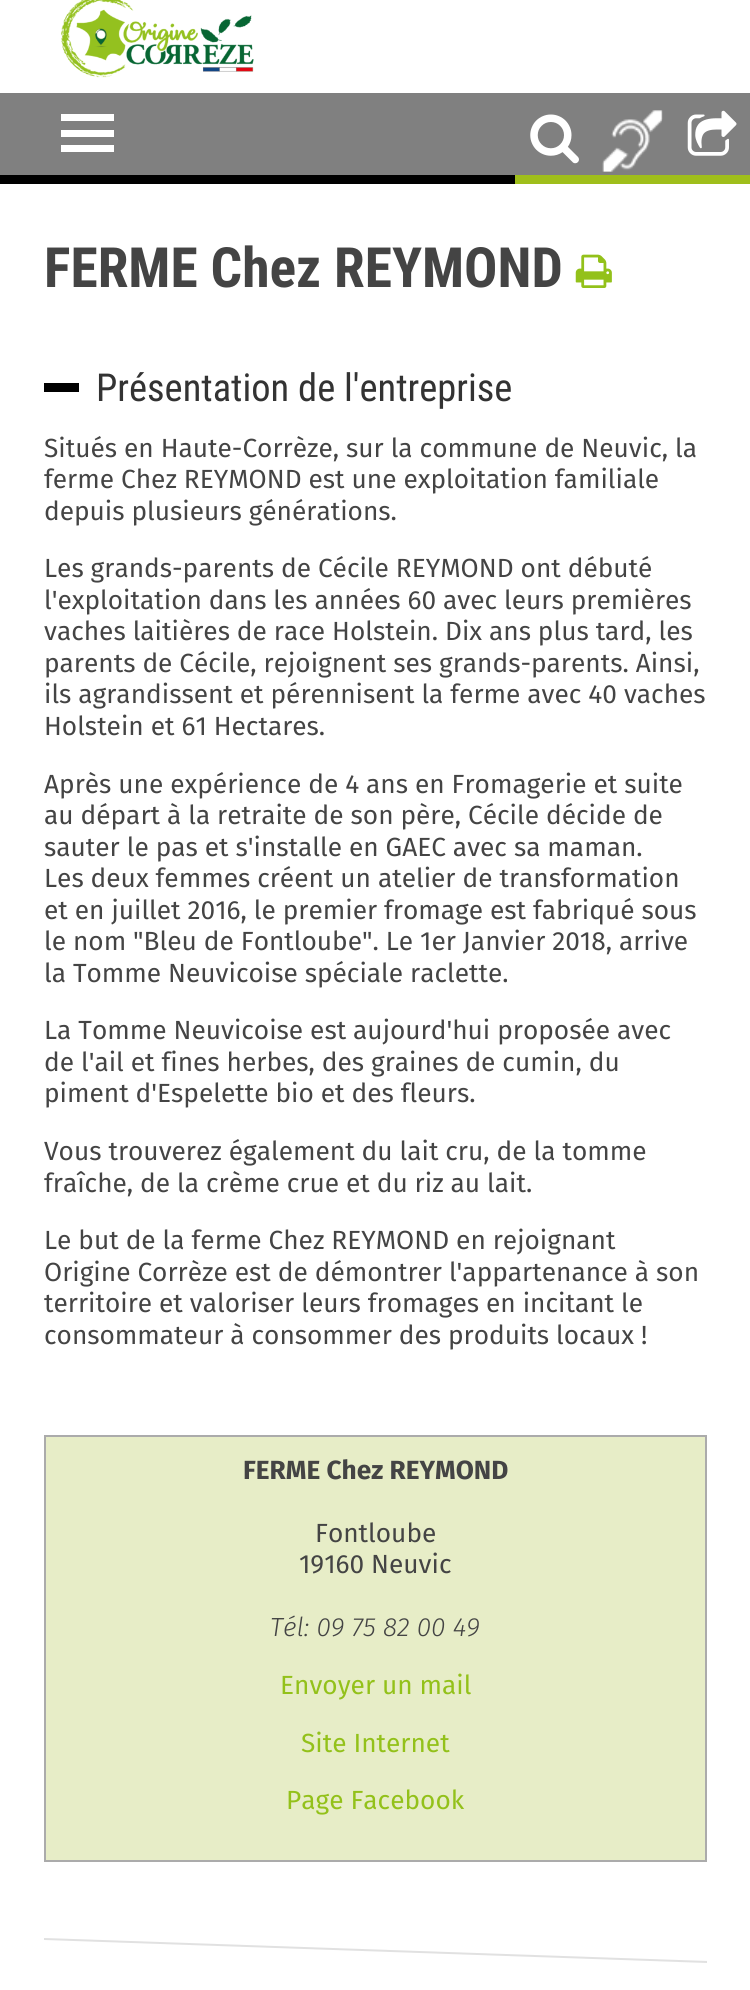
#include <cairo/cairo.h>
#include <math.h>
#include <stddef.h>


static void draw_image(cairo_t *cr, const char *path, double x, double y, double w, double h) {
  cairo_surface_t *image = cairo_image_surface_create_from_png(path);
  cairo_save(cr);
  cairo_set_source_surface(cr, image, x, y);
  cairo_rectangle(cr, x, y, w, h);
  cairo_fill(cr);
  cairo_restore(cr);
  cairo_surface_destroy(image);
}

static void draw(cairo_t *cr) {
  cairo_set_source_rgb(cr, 1, 1, 1);
  cairo_paint(cr);
  draw_image(cr, "images/1.png", 61, 0, 193, 78);
  cairo_set_source_rgb(cr, 128 / 255.0, 128 / 255.0, 128 / 255.0);
  cairo_rectangle(cr, 0, 93, 750, 82);
  cairo_fill(cr);
  cairo_set_source_rgb(cr, 1, 1, 1);
  cairo_rectangle(cr, 61, 114, 53, 7);
  cairo_fill(cr);
  cairo_rectangle(cr, 61, 130, 53, 7);
  cairo_fill(cr);
  cairo_rectangle(cr, 61, 145, 53, 7);
  cairo_fill(cr);
  draw_image(cr, "images/2.png", 602, 110, 61, 62);
  draw_image(cr, "images/3.png", 687, 110, 50, 46);
  draw_image(cr, "images/4.png", 530, 114, 49, 50);
  cairo_set_source_rgb(cr, 159 / 255.0, 190 / 255.0, 27 / 255.0);
  cairo_rectangle(cr, 515, 175, 235, 9);
  cairo_fill(cr);
  cairo_set_source_rgb(cr, 0, 0, 0);
  cairo_rectangle(cr, 0, 175, 515, 9);
  cairo_fill(cr);
  draw_image(cr, "images/5.png", 575, 254, 37, 34);
  cairo_rectangle(cr, 44, 383, 35, 9);
  cairo_fill(cr);
  cairo_rectangle(cr, 45, 1436, 661, 425);
  cairo_set_source_rgb(cr, 171 / 255.0, 171 / 255.0, 171 / 255.0);
  cairo_stroke(cr);
  cairo_set_source_rgb(cr, 231 / 255.0, 237 / 255.0, 199 / 255.0);
  cairo_rectangle(cr, 46, 1437, 659, 423);
  cairo_fill(cr);
  cairo_set_source_rgb(cr, 225 / 255.0, 225 / 255.0, 225 / 255.0);
  cairo_new_path(cr);
  cairo_move_to(cr, 44, 1938);
  cairo_line_to(cr, 707, 1961);
  cairo_line_to(cr, 707, 1963);
  cairo_line_to(cr, 44, 1940);
  cairo_close_path(cr);
  cairo_fill(cr);
  cairo_select_font_face(cr, "Roboto Condensed", CAIRO_FONT_SLANT_NORMAL, CAIRO_FONT_WEIGHT_BOLD);
  cairo_set_font_size(cr, 55.5);
  cairo_set_source_rgb(cr, 68 / 255.0, 68 / 255.0, 68 / 255.0);
  cairo_move_to(cr, 44, 287);
  cairo_show_text(cr, "FERME Chez REYMOND");
  cairo_select_font_face(cr, "Roboto Condensed", CAIRO_FONT_SLANT_NORMAL, CAIRO_FONT_WEIGHT_NORMAL);
  cairo_set_font_size(cr, 38.5);
  cairo_set_source_rgb(cr, 51 / 255.0, 51 / 255.0, 51 / 255.0);
  cairo_move_to(cr, 96, 401);
  cairo_show_text(cr, "Présentation de l'entreprise");
  cairo_select_font_face(cr, "Fira Sans", CAIRO_FONT_SLANT_NORMAL, CAIRO_FONT_WEIGHT_NORMAL);
  cairo_set_font_size(cr, 26.25);
  cairo_set_source_rgb(cr, 68 / 255.0, 68 / 255.0, 68 / 255.0);
  cairo_move_to(cr, 44, 457);
  cairo_show_text(cr, "Situés en Haute-Corrèze, sur la commune de Neuvic, la");
  cairo_move_to(cr, 44, 488);
  cairo_show_text(cr, "ferme Chez REYMOND est une exploitation familiale");
  cairo_move_to(cr, 44, 520);
  cairo_show_text(cr, "depuis plusieurs générations.");
  cairo_move_to(cr, 44, 577);
  cairo_show_text(cr, "Les grands-parents de Cécile REYMOND ont débuté");
  cairo_move_to(cr, 44, 609);
  cairo_show_text(cr, "l'exploitation dans les années 60 avec leurs premières");
  cairo_move_to(cr, 44, 640);
  cairo_show_text(cr, "vaches laitières de race Holstein. Dix ans plus tard, les");
  cairo_move_to(cr, 44, 672);
  cairo_show_text(cr, "parents de Cécile, rejoignent ses grands-parents. Ainsi,");
  cairo_move_to(cr, 44, 703);
  cairo_show_text(cr, "ils agrandissent et pérennisent la ferme avec 40 vaches");
  cairo_move_to(cr, 44, 735);
  cairo_show_text(cr, "Holstein et 61 Hectares.");
  cairo_move_to(cr, 44, 793);
  cairo_show_text(cr, "Après une expérience de 4 ans en Fromagerie et suite");
  cairo_move_to(cr, 44, 824);
  cairo_show_text(cr, "au départ à la retraite de son père, Cécile décide de");
  cairo_move_to(cr, 44, 856);
  cairo_show_text(cr, "sauter le pas et s'installe en GAEC avec sa maman.");
  cairo_move_to(cr, 44, 887);
  cairo_show_text(cr, "Les deux femmes créent un atelier de transformation");
  cairo_move_to(cr, 44, 919);
  cairo_show_text(cr, "et en juillet 2016, le premier fromage est fabriqué sous");
  cairo_move_to(cr, 44, 950);
  cairo_show_text(cr, "le nom \"Bleu de Fontloube\". Le 1er Janvier 2018, arrive");
  cairo_move_to(cr, 44, 982);
  cairo_show_text(cr, "la Tomme Neuvicoise spéciale raclette.");
  cairo_move_to(cr, 44, 1039);
  cairo_show_text(cr, "La Tomme Neuvicoise est aujourd'hui proposée avec");
  cairo_move_to(cr, 44, 1071);
  cairo_show_text(cr, "de l'ail et fines herbes, des graines de cumin, du");
  cairo_move_to(cr, 44, 1102);
  cairo_show_text(cr, "piment d'Espelette bio et des fleurs.");
  cairo_move_to(cr, 44, 1160);
  cairo_show_text(cr, "Vous trouverez également du lait cru, de la tomme");
  cairo_move_to(cr, 44, 1192);
  cairo_show_text(cr, "fraîche, de la crème crue et du riz au lait.");
  cairo_move_to(cr, 44, 1249);
  cairo_show_text(cr, "Le but de la ferme Chez REYMOND en rejoignant");
  cairo_move_to(cr, 44, 1281);
  cairo_show_text(cr, "Origine Corrèze est de démontrer l'appartenance à son");
  cairo_move_to(cr, 44, 1312);
  cairo_show_text(cr, "territoire et valoriser leurs fromages en incitant le");
  cairo_move_to(cr, 44, 1344);
  cairo_show_text(cr, "consommateur à consommer des produits locaux !");
  cairo_select_font_face(cr, "Fira Sans", CAIRO_FONT_SLANT_NORMAL, CAIRO_FONT_WEIGHT_BOLD);
  cairo_move_to(cr, 243, 1479);
  cairo_show_text(cr, "FERME Chez REYMOND");
  cairo_select_font_face(cr, "Fira Sans", CAIRO_FONT_SLANT_NORMAL, CAIRO_FONT_WEIGHT_NORMAL);
  cairo_move_to(cr, 315, 1542);
  cairo_show_text(cr, "Fontloube");
  cairo_move_to(cr, 299, 1573);
  cairo_show_text(cr, "19160 Neuvic");
  cairo_select_font_face(cr, "Fira Sans Light", CAIRO_FONT_SLANT_ITALIC, CAIRO_FONT_WEIGHT_NORMAL);
  cairo_move_to(cr, 270, 1636);
  cairo_show_text(cr, "Tél: 09 75 82 00 49");
  cairo_select_font_face(cr, "Fira Sans", CAIRO_FONT_SLANT_NORMAL, CAIRO_FONT_WEIGHT_NORMAL);
  cairo_set_source_rgb(cr, 147 / 255.0, 193 / 255.0, 26 / 255.0);
  cairo_move_to(cr, 280, 1694);
  cairo_show_text(cr, "Envoyer un mail");
  cairo_move_to(cr, 301, 1752);
  cairo_show_text(cr, "Site Internet");
  cairo_move_to(cr, 286, 1809);
  cairo_show_text(cr, "Page Facebook");
}

int main(void) {
  cairo_surface_t *surface = cairo_image_surface_create(CAIRO_FORMAT_RGB24, 750, 1990);
  cairo_t *cr = cairo_create(surface);
  cairo_font_options_t *options = cairo_font_options_create();
  cairo_font_options_set_hint_metrics(options, CAIRO_HINT_METRICS_OFF);
  cairo_font_options_set_hint_style(options, CAIRO_HINT_STYLE_NONE);
  cairo_set_font_options(cr, options);
  cairo_set_miter_limit(cr, 4);
  draw(cr);
  cairo_surface_write_to_png(surface, "out.png");
  cairo_font_options_destroy(options);
  cairo_destroy(cr);
  cairo_surface_destroy(surface);
  return 0;
}
